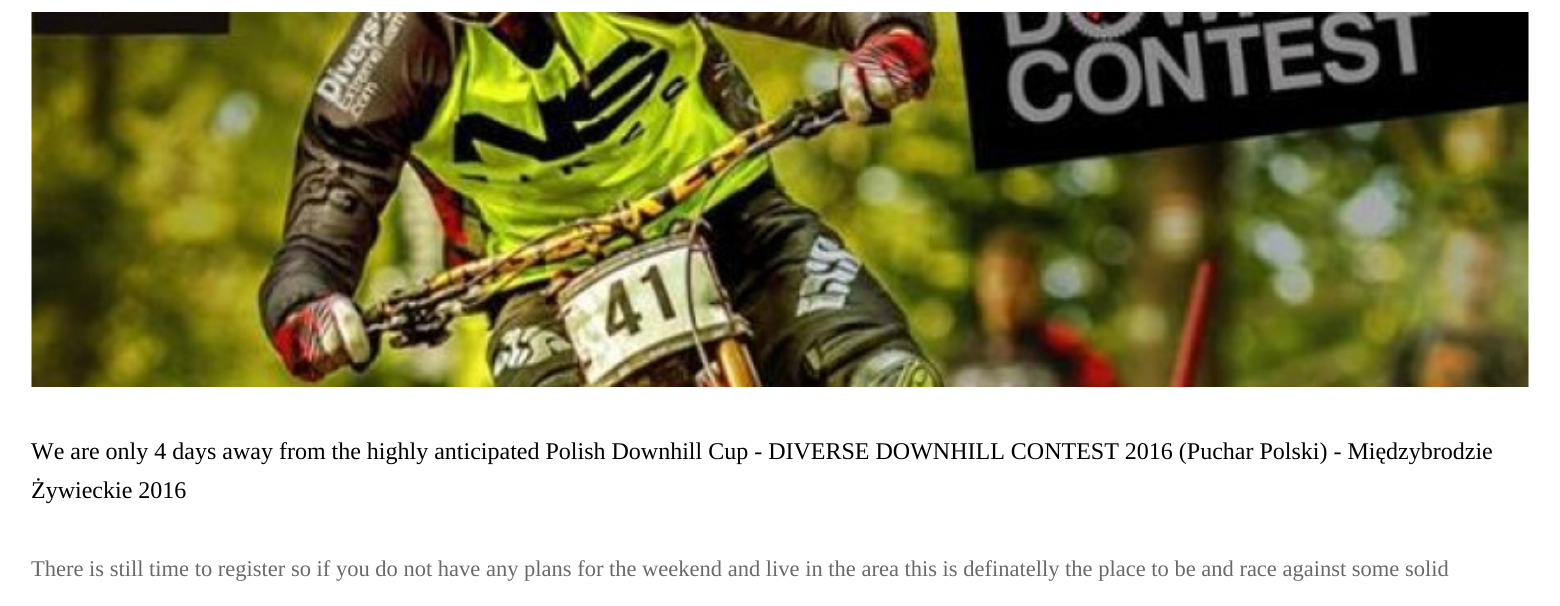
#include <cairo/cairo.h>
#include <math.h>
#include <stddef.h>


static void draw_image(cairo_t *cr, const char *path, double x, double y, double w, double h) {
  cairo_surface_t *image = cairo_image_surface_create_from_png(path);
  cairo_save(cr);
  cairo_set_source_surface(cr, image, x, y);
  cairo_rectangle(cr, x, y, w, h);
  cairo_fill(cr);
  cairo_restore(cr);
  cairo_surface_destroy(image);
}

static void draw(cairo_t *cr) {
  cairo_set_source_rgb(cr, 1, 1, 1);
  cairo_paint(cr);
  draw_image(cr, "images/1.png", 31, 12, 1498, 375);
  cairo_select_font_face(cr, "Liberation Serif", CAIRO_FONT_SLANT_NORMAL, CAIRO_FONT_WEIGHT_NORMAL);
  cairo_set_font_size(cr, 24);
  cairo_set_source_rgb(cr, 0, 0, 0);
  cairo_move_to(cr, 31, 459);
  cairo_show_text(cr, "We are only 4 days away from the highly anticipated Polish Downhill Cup - DIVERSE DOWNHILL CONTEST 2016 (Puchar Polski) - Międzybrodzie");
  cairo_move_to(cr, 31, 498);
  cairo_show_text(cr, "Żywieckie 2016");
  cairo_set_font_size(cr, 22.5);
  cairo_set_source_rgb(cr, 105 / 255.0, 105 / 255.0, 105 / 255.0);
  cairo_move_to(cr, 31, 576);
  cairo_show_text(cr, "There is still time to register so if you do not have any plans for the weekend and live in the area this is definatelly the place to be and race against some solid");
}

int main(void) {
  cairo_surface_t *surface = cairo_image_surface_create(CAIRO_FORMAT_RGB24, 1560, 606);
  cairo_t *cr = cairo_create(surface);
  cairo_font_options_t *options = cairo_font_options_create();
  cairo_font_options_set_hint_metrics(options, CAIRO_HINT_METRICS_OFF);
  cairo_font_options_set_hint_style(options, CAIRO_HINT_STYLE_NONE);
  cairo_set_font_options(cr, options);
  cairo_set_miter_limit(cr, 4);
  draw(cr);
  cairo_surface_write_to_png(surface, "out.png");
  cairo_font_options_destroy(options);
  cairo_destroy(cr);
  cairo_surface_destroy(surface);
  return 0;
}
